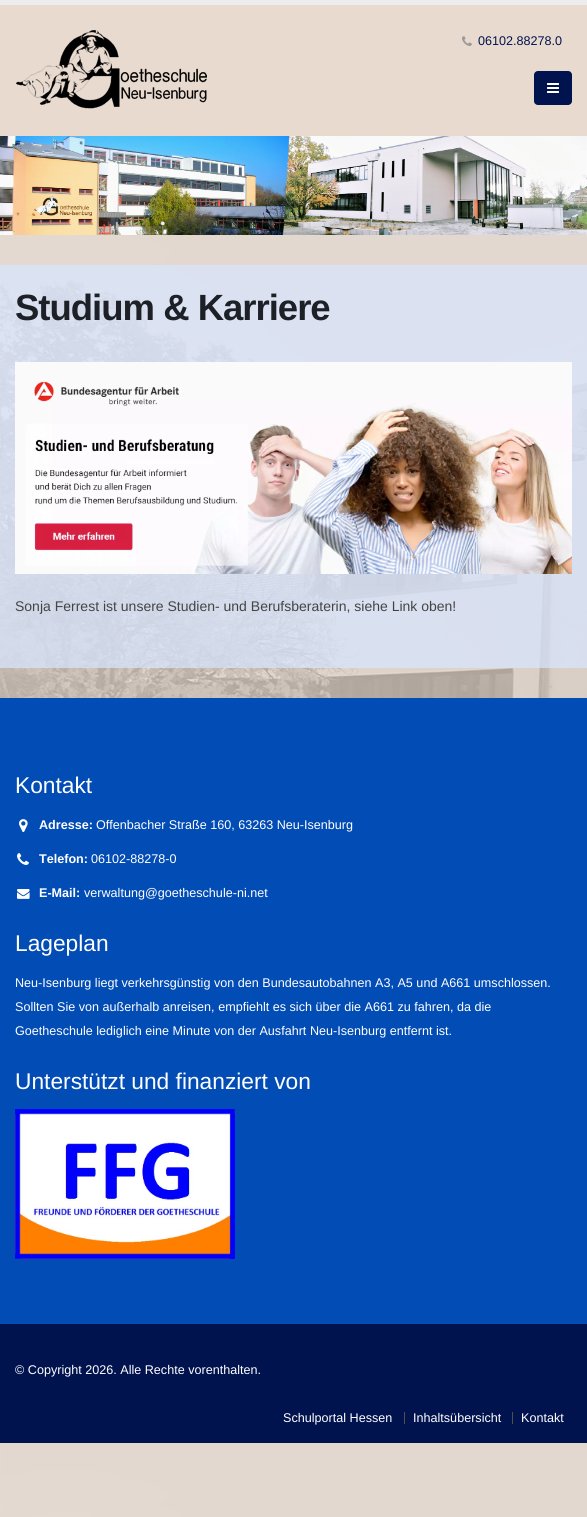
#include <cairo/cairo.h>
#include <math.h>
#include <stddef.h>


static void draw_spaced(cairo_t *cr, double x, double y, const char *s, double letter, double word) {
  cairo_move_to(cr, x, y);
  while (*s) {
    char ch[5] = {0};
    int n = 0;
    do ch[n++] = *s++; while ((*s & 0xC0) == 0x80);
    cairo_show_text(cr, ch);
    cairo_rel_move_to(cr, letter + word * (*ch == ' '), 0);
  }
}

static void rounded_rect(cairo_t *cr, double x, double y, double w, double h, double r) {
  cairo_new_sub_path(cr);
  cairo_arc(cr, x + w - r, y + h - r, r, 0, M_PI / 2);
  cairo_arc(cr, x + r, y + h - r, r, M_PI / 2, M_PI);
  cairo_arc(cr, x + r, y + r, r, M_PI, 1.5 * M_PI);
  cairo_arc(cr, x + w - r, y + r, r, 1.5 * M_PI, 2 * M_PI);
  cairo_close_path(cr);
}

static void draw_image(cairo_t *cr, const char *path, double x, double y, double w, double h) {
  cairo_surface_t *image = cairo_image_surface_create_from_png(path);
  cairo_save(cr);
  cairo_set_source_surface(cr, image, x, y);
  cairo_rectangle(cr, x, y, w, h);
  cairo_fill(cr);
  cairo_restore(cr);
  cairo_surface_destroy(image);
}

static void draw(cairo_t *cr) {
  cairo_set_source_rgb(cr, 232 / 255.0, 218 / 255.0, 206 / 255.0);
  cairo_paint(cr);
  draw_image(cr, "images/1.png", 0, 136, 587, 1381);
  cairo_set_source_rgb(cr, 237 / 255.0, 237 / 255.0, 237 / 255.0);
  cairo_rectangle(cr, 0, 0, 587, 5);
  cairo_fill(cr);
  draw_image(cr, "images/2.png", 16, 30, 191, 79);
  draw_image(cr, "images/3.png", 462, 36, 10, 10);
  cairo_set_source_rgb(cr, 1 / 255.0, 19 / 255.0, 78 / 255.0);
  rounded_rect(cr, 534, 71, 38, 34, 4);
  cairo_fill(cr);
  draw_image(cr, "images/4.png", 547, 83, 12, 10);
  draw_image(cr, "images/5.png", 0, 136, 587, 99);
  cairo_set_source_rgba(cr, 216 / 255.0, 230 / 255.0, 1, 0.7);
  cairo_rectangle(cr, 0, 265, 587, 403);
  cairo_fill(cr);
  draw_image(cr, "images/6.png", 15, 362, 557, 212);
  cairo_set_source_rgb(cr, 2 / 255.0, 76 / 255.0, 181 / 255.0);
  cairo_rectangle(cr, 0, 698, 587, 626);
  cairo_fill(cr);
  draw_image(cr, "images/7.png", 19, 819, 9, 13);
  draw_image(cr, "images/8.png", 17, 853, 12, 12);
  draw_image(cr, "images/9.png", 17, 889, 13, 10);
  draw_image(cr, "images/10.png", 15, 1109, 220, 150);
  cairo_set_source_rgb(cr, 1 / 255.0, 19 / 255.0, 78 / 255.0);
  cairo_rectangle(cr, 0, 1324, 587, 119);
  cairo_fill(cr);
  cairo_set_source_rgb(cr, 80 / 255.0, 80 / 255.0, 80 / 255.0);
  cairo_rectangle(cr, 404, 1412, 1, 12);
  cairo_fill(cr);
  cairo_rectangle(cr, 512, 1412, 1, 12);
  cairo_fill(cr);
  cairo_select_font_face(cr, "Liberation Sans", CAIRO_FONT_SLANT_NORMAL, CAIRO_FONT_WEIGHT_NORMAL);
  cairo_set_font_size(cr, 12.6);
  cairo_set_source_rgb(cr, 1 / 255.0, 19 / 255.0, 78 / 255.0);
  cairo_move_to(cr, 478, 45);
  cairo_show_text(cr, "06102.88278.0");
  cairo_select_font_face(cr, "Liberation Sans", CAIRO_FONT_SLANT_NORMAL, CAIRO_FONT_WEIGHT_BOLD);
  cairo_set_font_size(cr, 36.5);
  cairo_set_source_rgb(cr, 29 / 255.0, 33 / 255.0, 39 / 255.0);
  draw_spaced(cr, 15, 320, "Studium & Karriere", -1, 0);
  cairo_select_font_face(cr, "Liberation Sans", CAIRO_FONT_SLANT_NORMAL, CAIRO_FONT_WEIGHT_NORMAL);
  cairo_set_font_size(cr, 14);
  cairo_set_source_rgb(cr, 68 / 255.0, 68 / 255.0, 68 / 255.0);
  cairo_move_to(cr, 15, 611);
  cairo_show_text(cr, "Sonja Ferrest ist unsere Studien- und Berufsberaterin, siehe Link oben!");
  cairo_set_font_size(cr, 22.75);
  cairo_set_source_rgb(cr, 1, 1, 1);
  cairo_move_to(cr, 15, 793);
  cairo_show_text(cr, "Kontakt");
  cairo_select_font_face(cr, "Liberation Sans", CAIRO_FONT_SLANT_NORMAL, CAIRO_FONT_WEIGHT_BOLD);
  cairo_set_font_size(cr, 12.6);
  cairo_move_to(cr, 39, 829);
  cairo_show_text(cr, "Adresse:");
  cairo_select_font_face(cr, "Liberation Sans", CAIRO_FONT_SLANT_NORMAL, CAIRO_FONT_WEIGHT_NORMAL);
  cairo_move_to(cr, 96, 829);
  cairo_show_text(cr, "Offenbacher Straße 160, 63263 Neu-Isenburg");
  cairo_select_font_face(cr, "Liberation Sans", CAIRO_FONT_SLANT_NORMAL, CAIRO_FONT_WEIGHT_BOLD);
  cairo_move_to(cr, 39, 863);
  cairo_show_text(cr, "Telefon:");
  cairo_select_font_face(cr, "Liberation Sans", CAIRO_FONT_SLANT_NORMAL, CAIRO_FONT_WEIGHT_NORMAL);
  cairo_move_to(cr, 91, 863);
  cairo_show_text(cr, "06102-88278-0");
  cairo_select_font_face(cr, "Liberation Sans", CAIRO_FONT_SLANT_NORMAL, CAIRO_FONT_WEIGHT_BOLD);
  cairo_move_to(cr, 39, 897);
  cairo_show_text(cr, "E-Mail:");
  cairo_select_font_face(cr, "Liberation Sans", CAIRO_FONT_SLANT_NORMAL, CAIRO_FONT_WEIGHT_NORMAL);
  cairo_move_to(cr, 84, 897);
  cairo_show_text(cr, "verwaltung@goetheschule-ni.net");
  cairo_set_font_size(cr, 22.75);
  cairo_move_to(cr, 15, 951);
  cairo_show_text(cr, "Lageplan");
  cairo_set_font_size(cr, 12.6);
  cairo_move_to(cr, 15, 987);
  cairo_show_text(cr, "Neu-Isenburg liegt verkehrsgünstig von den Bundesautobahnen A3, A5 und A661 umschlossen.");
  cairo_move_to(cr, 15, 1011);
  cairo_show_text(cr, "Sollten Sie von außerhalb anreisen, empfiehlt es sich über die A661 zu fahren, da die");
  cairo_move_to(cr, 15, 1035);
  cairo_show_text(cr, "Goetheschule lediglich eine Minute von der Ausfahrt Neu-Isenburg entfernt ist.");
  cairo_set_font_size(cr, 22.75);
  cairo_move_to(cr, 15, 1089);
  cairo_show_text(cr, "Unterstützt und finanziert von");
  cairo_set_font_size(cr, 12.6);
  cairo_move_to(cr, 15, 1374);
  cairo_show_text(cr, "© Copyright 2026. Alle Rechte vorenthalten.");
  cairo_move_to(cr, 283, 1422);
  cairo_show_text(cr, "Schulportal Hessen");
  cairo_move_to(cr, 413, 1422);
  cairo_show_text(cr, "Inhaltsübersicht");
  cairo_move_to(cr, 521, 1422);
  cairo_show_text(cr, "Kontakt");
}

int main(void) {
  cairo_surface_t *surface = cairo_image_surface_create(CAIRO_FORMAT_RGB24, 587, 1517);
  cairo_t *cr = cairo_create(surface);
  cairo_font_options_t *options = cairo_font_options_create();
  cairo_font_options_set_hint_metrics(options, CAIRO_HINT_METRICS_OFF);
  cairo_font_options_set_hint_style(options, CAIRO_HINT_STYLE_NONE);
  cairo_set_font_options(cr, options);
  cairo_set_miter_limit(cr, 4);
  draw(cr);
  cairo_surface_write_to_png(surface, "out.png");
  cairo_font_options_destroy(options);
  cairo_destroy(cr);
  cairo_surface_destroy(surface);
  return 0;
}
